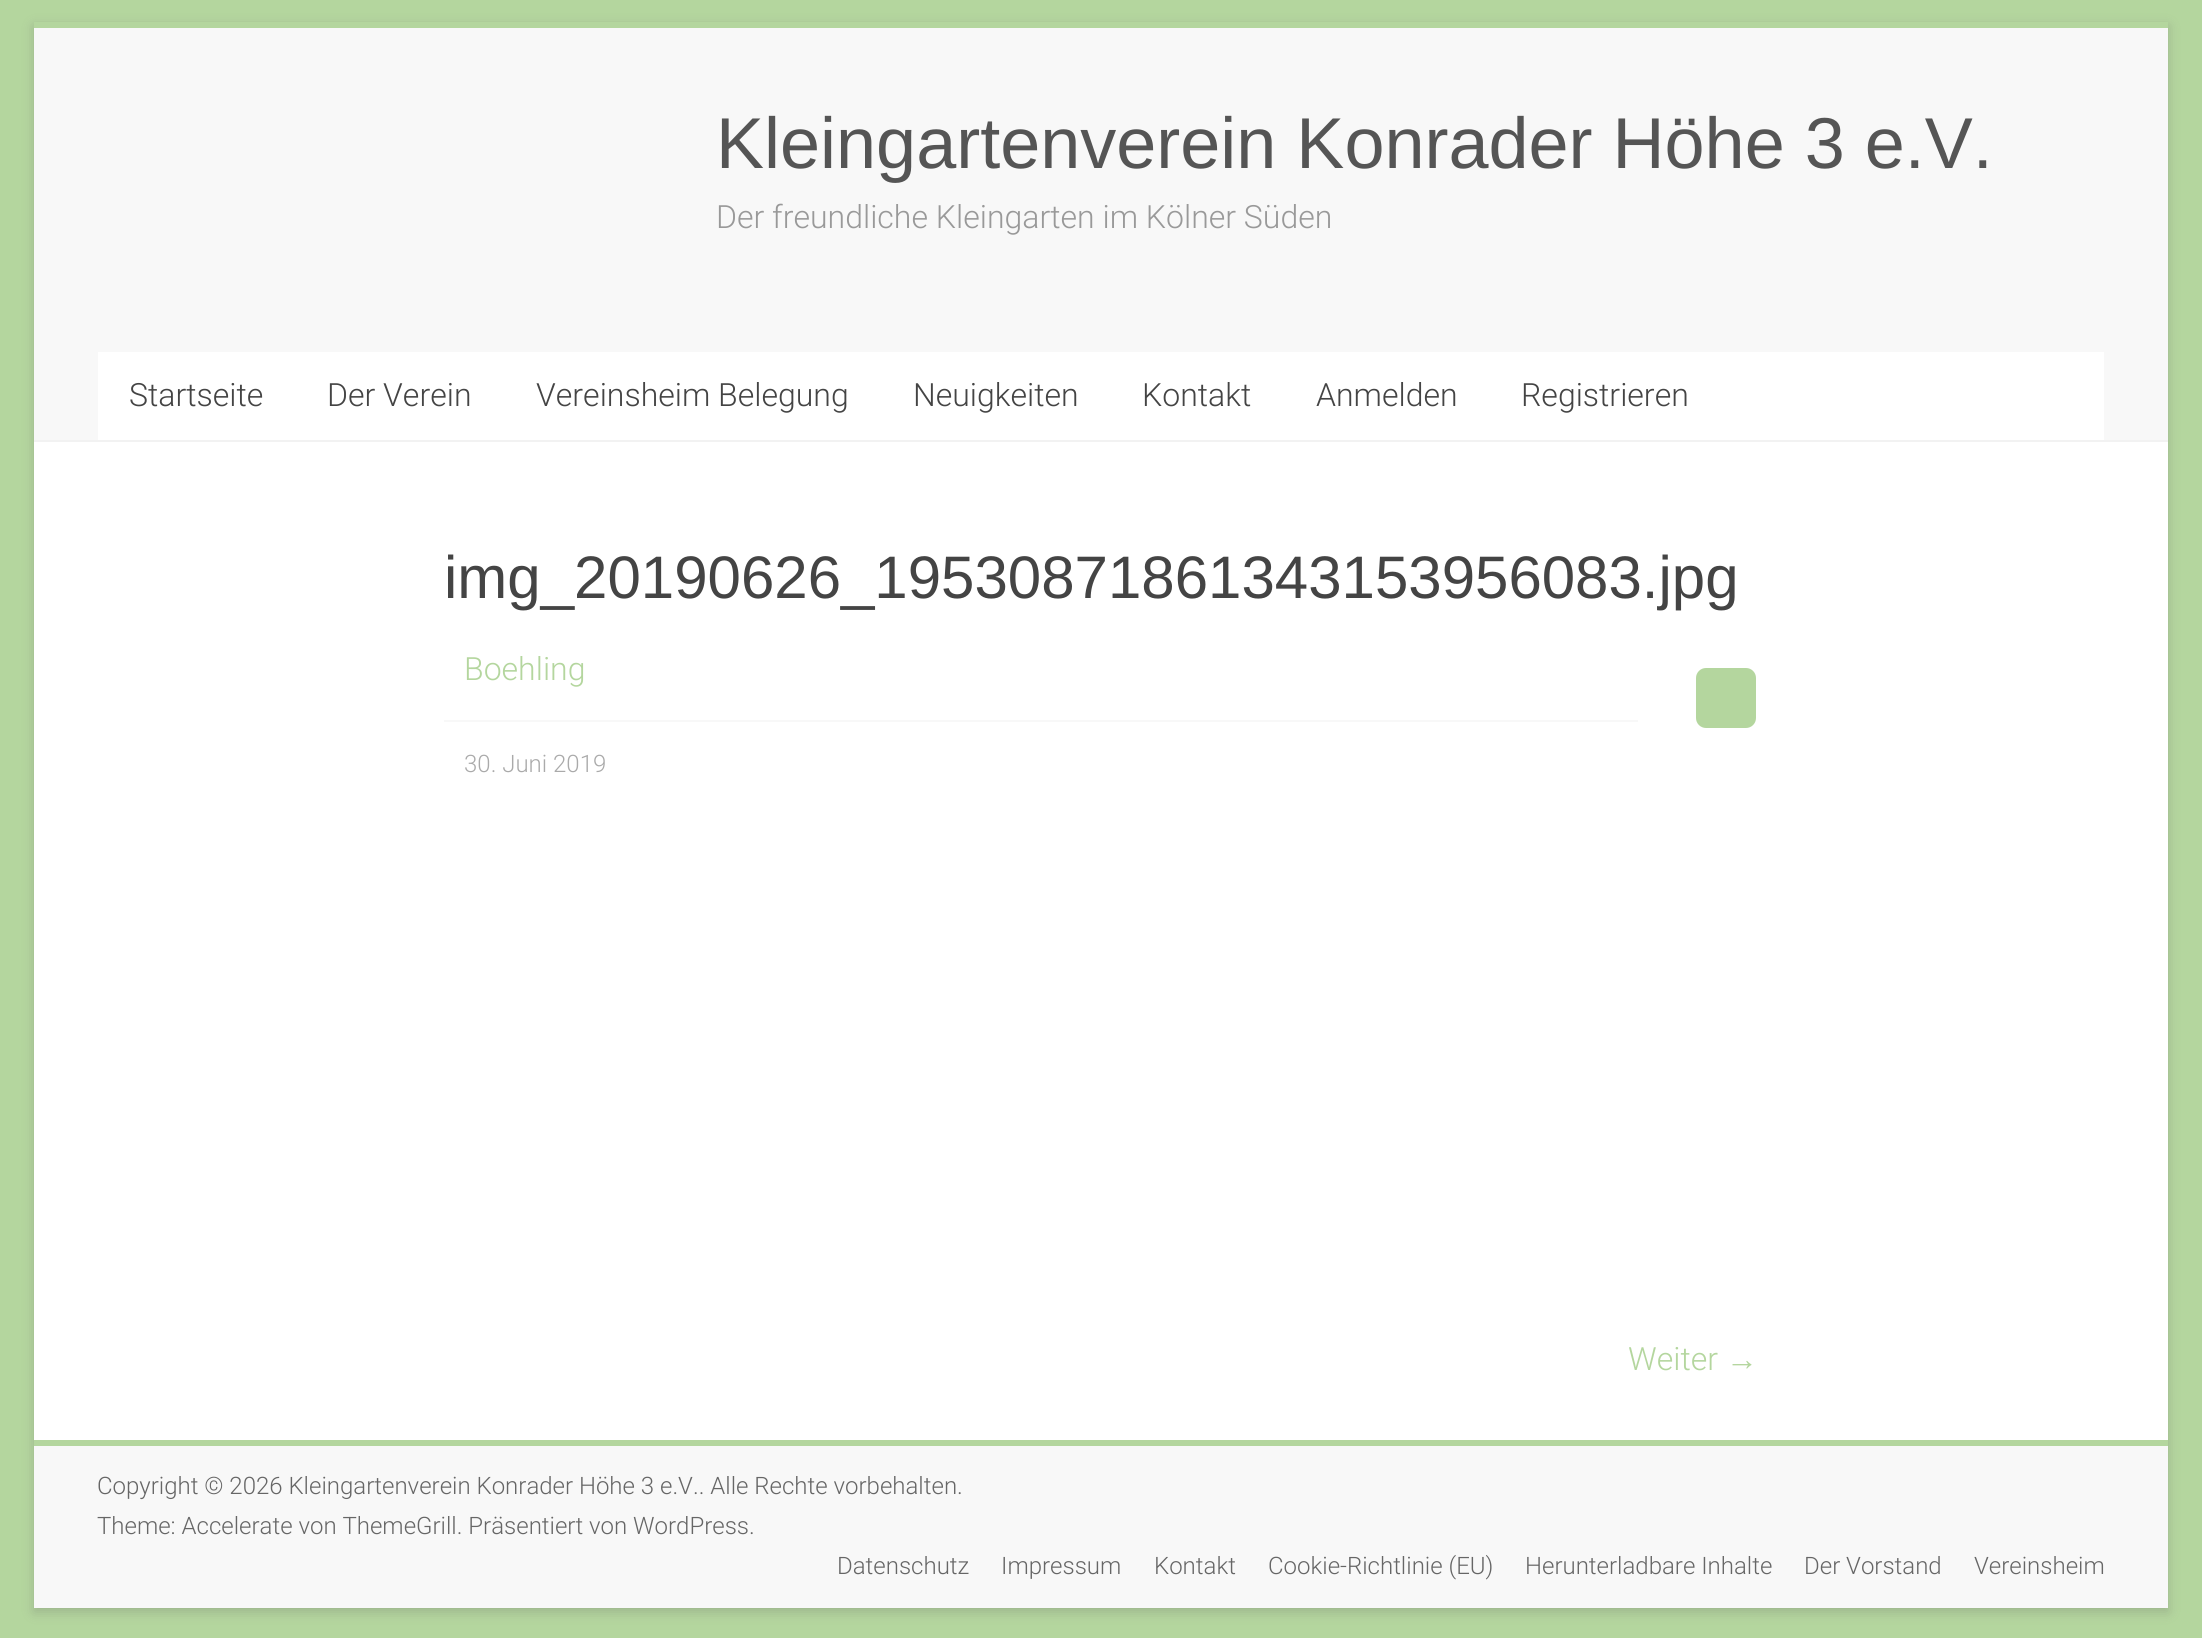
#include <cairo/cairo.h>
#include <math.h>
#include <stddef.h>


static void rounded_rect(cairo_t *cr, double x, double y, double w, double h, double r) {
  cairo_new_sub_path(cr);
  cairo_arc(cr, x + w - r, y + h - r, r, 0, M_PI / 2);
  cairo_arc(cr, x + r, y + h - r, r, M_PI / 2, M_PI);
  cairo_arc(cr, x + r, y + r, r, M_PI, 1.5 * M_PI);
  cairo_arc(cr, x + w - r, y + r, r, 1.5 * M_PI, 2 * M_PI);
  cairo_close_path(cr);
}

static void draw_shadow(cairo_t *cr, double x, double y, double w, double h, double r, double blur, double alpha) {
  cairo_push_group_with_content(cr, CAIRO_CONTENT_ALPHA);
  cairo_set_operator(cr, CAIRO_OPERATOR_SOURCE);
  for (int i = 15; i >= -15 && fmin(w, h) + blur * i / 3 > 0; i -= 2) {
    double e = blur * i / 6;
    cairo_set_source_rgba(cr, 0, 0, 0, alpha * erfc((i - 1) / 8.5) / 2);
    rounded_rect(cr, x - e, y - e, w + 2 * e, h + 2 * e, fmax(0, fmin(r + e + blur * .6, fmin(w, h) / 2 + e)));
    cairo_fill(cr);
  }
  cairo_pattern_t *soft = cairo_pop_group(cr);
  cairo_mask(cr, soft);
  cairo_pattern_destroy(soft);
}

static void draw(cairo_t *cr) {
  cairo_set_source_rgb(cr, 180 / 255.0, 214 / 255.0, 158 / 255.0);
  cairo_paint(cr);
  cairo_set_source_rgb(cr, 100 / 255.0, 100 / 255.0, 100 / 255.0);
  draw_shadow(cr, 34, 26, 2134, 1586, 0, 6, 0.3);
  cairo_set_source_rgb(cr, 1, 1, 1);
  cairo_rectangle(cr, 34, 442, 2134, 998);
  cairo_fill(cr);
  cairo_set_source_rgb(cr, 180 / 255.0, 214 / 255.0, 158 / 255.0);
  cairo_rectangle(cr, 34, 22, 2134, 6);
  cairo_fill(cr);
  cairo_set_source_rgb(cr, 248 / 255.0, 248 / 255.0, 248 / 255.0);
  cairo_rectangle(cr, 34, 28, 2134, 412);
  cairo_fill(cr);
  cairo_set_source_rgb(cr, 242 / 255.0, 242 / 255.0, 242 / 255.0);
  cairo_rectangle(cr, 34, 440, 2134, 2);
  cairo_fill(cr);
  cairo_set_source_rgb(cr, 1, 1, 1);
  cairo_rectangle(cr, 98, 352, 2006, 88);
  cairo_fill(cr);
  cairo_set_source_rgb(cr, 248 / 255.0, 248 / 255.0, 248 / 255.0);
  cairo_rectangle(cr, 444, 720, 1194, 2);
  cairo_fill(cr);
  cairo_set_source_rgb(cr, 180 / 255.0, 214 / 255.0, 158 / 255.0);
  rounded_rect(cr, 1696, 668, 60, 60, 10);
  cairo_fill(cr);
  cairo_set_source_rgb(cr, 248 / 255.0, 248 / 255.0, 248 / 255.0);
  cairo_rectangle(cr, 34, 1446, 2134, 162);
  cairo_fill(cr);
  cairo_set_source_rgb(cr, 180 / 255.0, 214 / 255.0, 158 / 255.0);
  cairo_rectangle(cr, 34, 1440, 2134, 6);
  cairo_fill(cr);
  cairo_select_font_face(cr, "Liberation Sans", CAIRO_FONT_SLANT_NORMAL, CAIRO_FONT_WEIGHT_NORMAL);
  cairo_set_font_size(cr, 72);
  cairo_set_source_rgb(cr, 85 / 255.0, 85 / 255.0, 85 / 255.0);
  cairo_move_to(cr, 716, 168);
  cairo_show_text(cr, "Kleingartenverein Konrader Höhe 3 e.V.");
  cairo_select_font_face(cr, "Roboto Light", CAIRO_FONT_SLANT_NORMAL, CAIRO_FONT_WEIGHT_NORMAL);
  cairo_set_font_size(cr, 32);
  cairo_set_source_rgb(cr, 153 / 255.0, 153 / 255.0, 153 / 255.0);
  cairo_move_to(cr, 716, 228);
  cairo_show_text(cr, "Der freundliche Kleingarten im Kölner Süden");
  cairo_set_source_rgb(cr, 68 / 255.0, 68 / 255.0, 68 / 255.0);
  cairo_move_to(cr, 129, 406);
  cairo_show_text(cr, "Startseite");
  cairo_move_to(cr, 327, 406);
  cairo_show_text(cr, "Der Verein");
  cairo_move_to(cr, 536, 406);
  cairo_show_text(cr, "Vereinsheim Belegung");
  cairo_move_to(cr, 913, 406);
  cairo_show_text(cr, "Neuigkeiten");
  cairo_move_to(cr, 1142, 406);
  cairo_show_text(cr, "Kontakt");
  cairo_move_to(cr, 1316, 406);
  cairo_show_text(cr, "Anmelden");
  cairo_move_to(cr, 1521, 406);
  cairo_show_text(cr, "Registrieren");
  cairo_select_font_face(cr, "Liberation Sans", CAIRO_FONT_SLANT_NORMAL, CAIRO_FONT_WEIGHT_NORMAL);
  cairo_set_font_size(cr, 60);
  cairo_move_to(cr, 444, 598);
  cairo_show_text(cr, "img_20190626_19530871861343153956083.jpg");
  cairo_select_font_face(cr, "Roboto Light", CAIRO_FONT_SLANT_NORMAL, CAIRO_FONT_WEIGHT_NORMAL);
  cairo_set_font_size(cr, 32);
  cairo_set_source_rgb(cr, 180 / 255.0, 214 / 255.0, 158 / 255.0);
  cairo_move_to(cr, 464, 680);
  cairo_show_text(cr, "Boehling");
  cairo_set_font_size(cr, 24);
  cairo_set_source_rgb(cr, 170 / 255.0, 170 / 255.0, 170 / 255.0);
  cairo_move_to(cr, 464, 772);
  cairo_show_text(cr, "30. Juni 2019");
  cairo_set_font_size(cr, 32);
  cairo_set_source_rgb(cr, 180 / 255.0, 214 / 255.0, 158 / 255.0);
  cairo_move_to(cr, 1628, 1370);
  cairo_show_text(cr, "Weiter");
  cairo_select_font_face(cr, "Liberation Sans", CAIRO_FONT_SLANT_NORMAL, CAIRO_FONT_WEIGHT_NORMAL);
  cairo_move_to(cr, 1726, 1370);
  cairo_show_text(cr, "→");
  cairo_select_font_face(cr, "Roboto Light", CAIRO_FONT_SLANT_NORMAL, CAIRO_FONT_WEIGHT_NORMAL);
  cairo_set_font_size(cr, 24);
  cairo_set_source_rgb(cr, 102 / 255.0, 102 / 255.0, 102 / 255.0);
  cairo_move_to(cr, 97, 1494);
  cairo_show_text(cr, "Copyright © 2026 Kleingartenverein Konrader Höhe 3 e.V.. Alle Rechte vorbehalten.");
  cairo_move_to(cr, 97, 1534);
  cairo_show_text(cr, "Theme: Accelerate von ThemeGrill. Präsentiert von WordPress.");
  cairo_move_to(cr, 837, 1574);
  cairo_show_text(cr, "Datenschutz");
  cairo_move_to(cr, 1001, 1574);
  cairo_show_text(cr, "Impressum");
  cairo_move_to(cr, 1154, 1574);
  cairo_show_text(cr, "Kontakt");
  cairo_move_to(cr, 1268, 1574);
  cairo_show_text(cr, "Cookie-Richtlinie (EU)");
  cairo_move_to(cr, 1525, 1574);
  cairo_show_text(cr, "Herunterladbare Inhalte");
  cairo_move_to(cr, 1804, 1574);
  cairo_show_text(cr, "Der Vorstand");
  cairo_move_to(cr, 1974, 1574);
  cairo_show_text(cr, "Vereinsheim");
}

int main(void) {
  cairo_surface_t *surface = cairo_image_surface_create(CAIRO_FORMAT_RGB24, 2202, 1638);
  cairo_t *cr = cairo_create(surface);
  cairo_font_options_t *options = cairo_font_options_create();
  cairo_font_options_set_hint_metrics(options, CAIRO_HINT_METRICS_OFF);
  cairo_font_options_set_hint_style(options, CAIRO_HINT_STYLE_NONE);
  cairo_set_font_options(cr, options);
  cairo_set_miter_limit(cr, 4);
  draw(cr);
  cairo_surface_write_to_png(surface, "out.png");
  cairo_font_options_destroy(options);
  cairo_destroy(cr);
  cairo_surface_destroy(surface);
  return 0;
}
